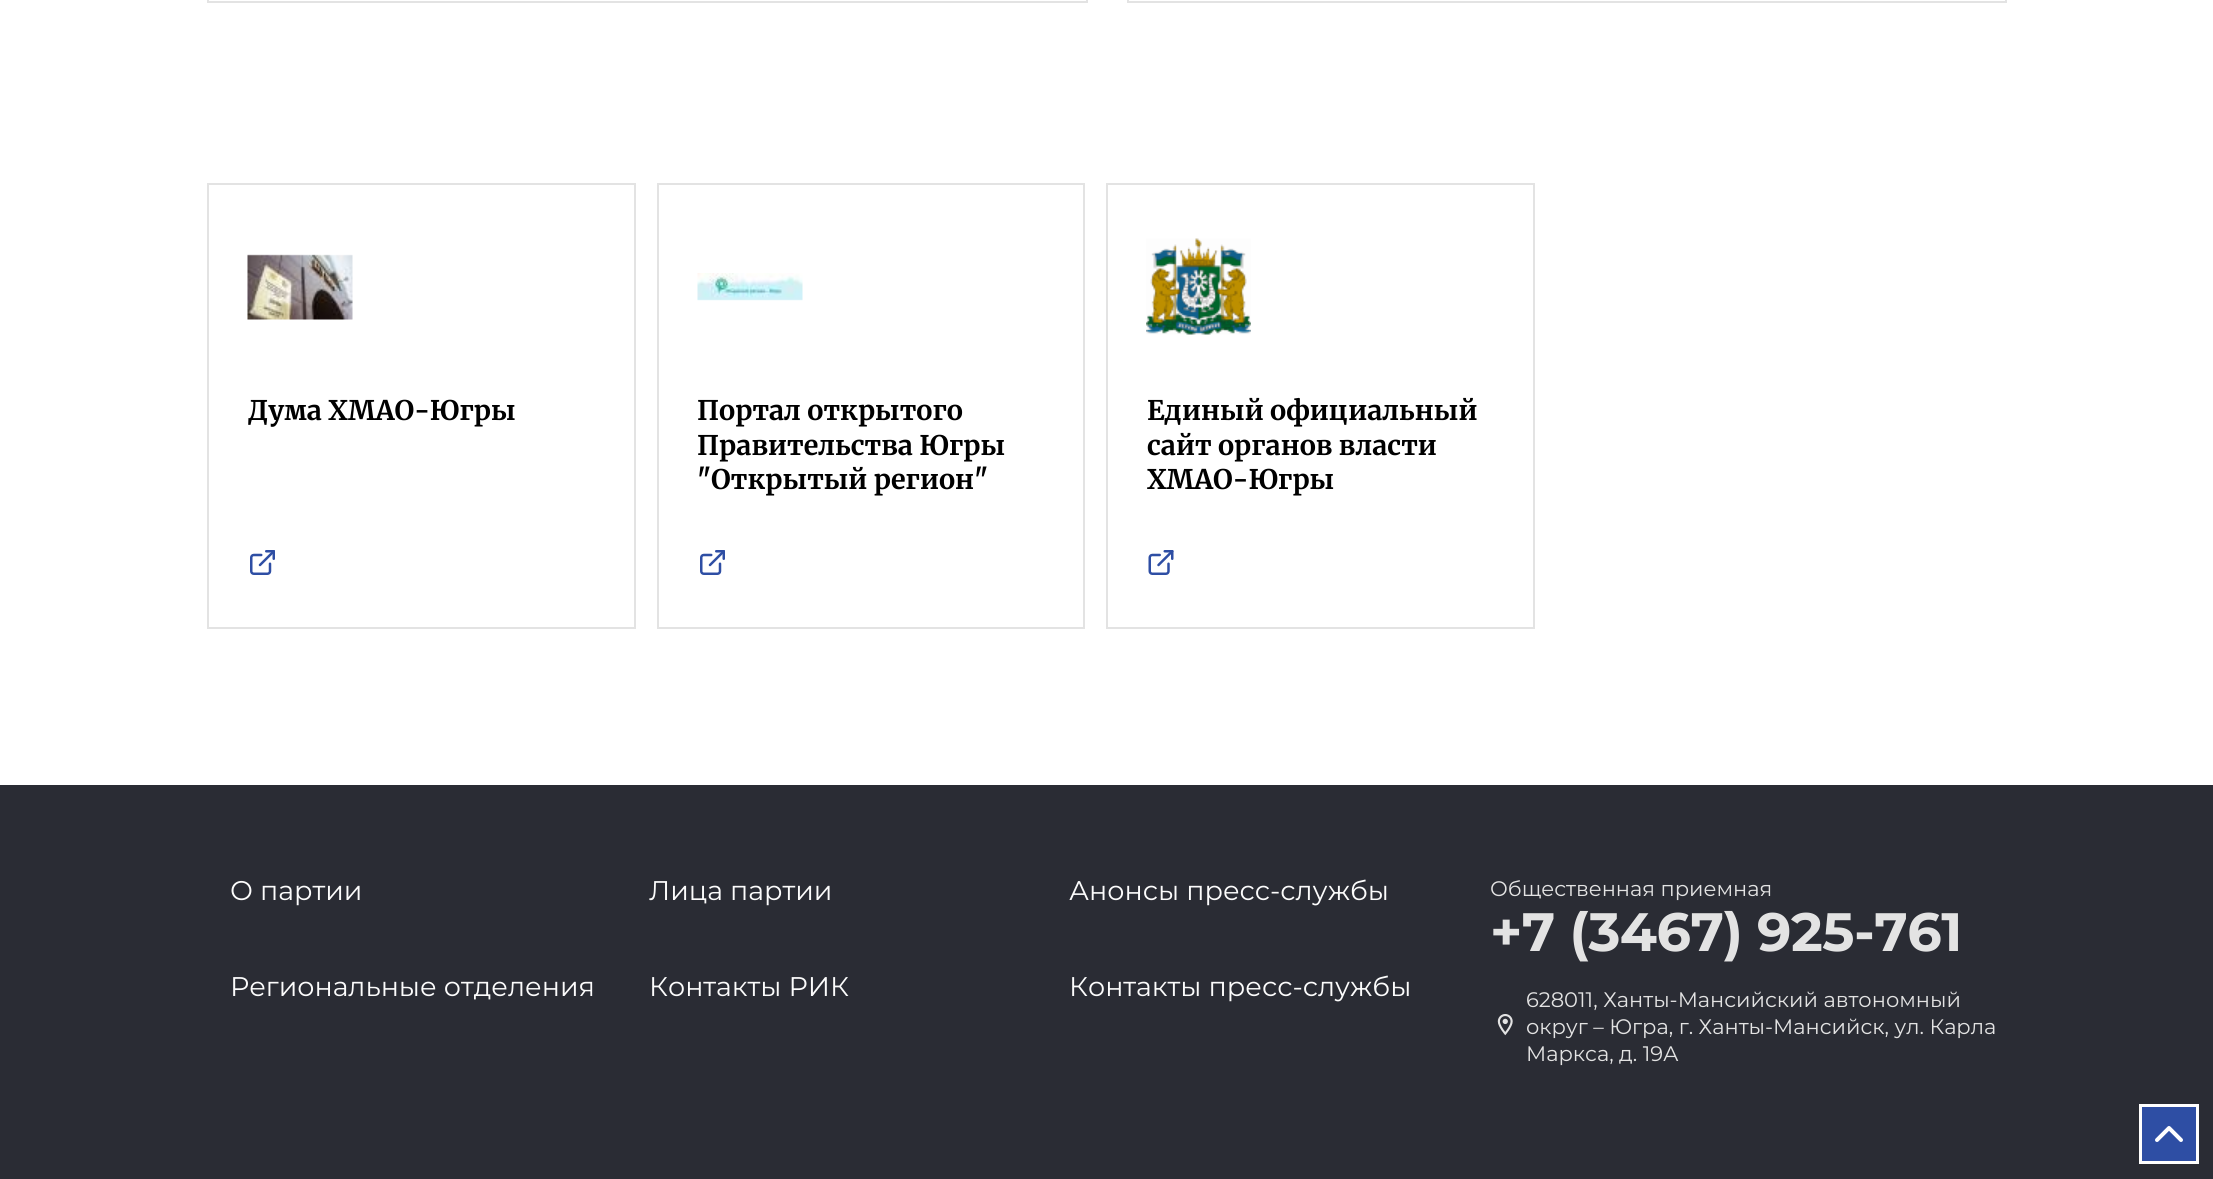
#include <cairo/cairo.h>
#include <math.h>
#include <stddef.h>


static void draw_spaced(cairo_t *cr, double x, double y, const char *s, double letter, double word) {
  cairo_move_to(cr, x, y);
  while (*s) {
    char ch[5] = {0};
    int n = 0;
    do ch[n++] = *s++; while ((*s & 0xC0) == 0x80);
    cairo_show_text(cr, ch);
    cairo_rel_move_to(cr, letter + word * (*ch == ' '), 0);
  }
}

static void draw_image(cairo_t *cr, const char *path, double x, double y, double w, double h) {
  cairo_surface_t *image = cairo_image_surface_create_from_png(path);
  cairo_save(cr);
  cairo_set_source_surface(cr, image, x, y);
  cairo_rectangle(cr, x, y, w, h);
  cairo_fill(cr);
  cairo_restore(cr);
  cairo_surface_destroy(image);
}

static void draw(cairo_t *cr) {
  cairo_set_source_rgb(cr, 1, 1, 1);
  cairo_paint(cr);
  cairo_rectangle(cr, 208, -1, 879, 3);
  cairo_set_source_rgb(cr, 227 / 255.0, 227 / 255.0, 227 / 255.0);
  cairo_stroke(cr);
  cairo_rectangle(cr, 1128, -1, 878, 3);
  cairo_stroke(cr);
  cairo_rectangle(cr, 208, 184, 427, 444);
  cairo_stroke(cr);
  draw_image(cr, "images/1.png", 247, 254, 106, 66);
  draw_image(cr, "images/2.png", 250, 550, 25, 25);
  cairo_rectangle(cr, 658, 184, 426, 444);
  cairo_stroke(cr);
  draw_image(cr, "images/3.png", 697, 273, 106, 28);
  draw_image(cr, "images/2.png", 700, 550, 25, 25);
  cairo_rectangle(cr, 1107, 184, 427, 444);
  cairo_stroke(cr);
  draw_image(cr, "images/4.png", 1146, 238, 105, 97);
  draw_image(cr, "images/5.png", 1148, 550, 26, 25);
  cairo_set_source_rgb(cr, 42 / 255.0, 44 / 255.0, 52 / 255.0);
  cairo_rectangle(cr, 0, 785, 2213, 394);
  cairo_fill(cr);
  draw_image(cr, "images/6.png", 1497, 1014, 16, 22);
  cairo_set_source_rgb(cr, 46 / 255.0, 78 / 255.0, 164 / 255.0);
  cairo_rectangle(cr, 2140.5, 1105.5, 57, 57);
  cairo_fill_preserve(cr);
  cairo_set_source_rgb(cr, 1, 1, 1);
  cairo_set_line_width(cr, 3);
  cairo_stroke(cr);
  draw_image(cr, "images/7.png", 2155, 1126, 28, 16);
  cairo_select_font_face(cr, "Merriweather", CAIRO_FONT_SLANT_NORMAL, CAIRO_FONT_WEIGHT_BOLD);
  cairo_set_font_size(cr, 27);
  cairo_set_source_rgb(cr, 0, 0, 0);
  cairo_move_to(cr, 248, 420);
  cairo_show_text(cr, "Дума ХМАО-Югры");
  cairo_move_to(cr, 697, 420);
  cairo_show_text(cr, "Портал открытого");
  cairo_move_to(cr, 697, 455);
  cairo_show_text(cr, "Правительства Югры");
  cairo_move_to(cr, 697, 489);
  cairo_show_text(cr, "\"Открытый регион\"");
  cairo_move_to(cr, 1147, 420);
  cairo_show_text(cr, "Единый официальный");
  cairo_move_to(cr, 1147, 455);
  cairo_show_text(cr, "сайт органов власти");
  cairo_move_to(cr, 1147, 489);
  cairo_show_text(cr, "ХМАО-Югры");
  cairo_select_font_face(cr, "Montserrat", CAIRO_FONT_SLANT_NORMAL, CAIRO_FONT_WEIGHT_NORMAL);
  cairo_set_source_rgb(cr, 252 / 255.0, 252 / 255.0, 252 / 255.0);
  cairo_move_to(cr, 230, 900);
  cairo_show_text(cr, "О партии");
  cairo_move_to(cr, 649, 900);
  cairo_show_text(cr, "Лица партии");
  cairo_move_to(cr, 1069, 900);
  cairo_show_text(cr, "Анонсы пресс-службы");
  cairo_move_to(cr, 230, 996);
  cairo_show_text(cr, "Региональные отделения");
  cairo_move_to(cr, 649, 996);
  cairo_show_text(cr, "Контакты РИК");
  cairo_move_to(cr, 1069, 996);
  cairo_show_text(cr, "Контакты пресс-службы");
  cairo_set_font_size(cr, 21);
  cairo_set_source_rgb(cr, 227 / 255.0, 227 / 255.0, 227 / 255.0);
  cairo_move_to(cr, 1490, 896);
  cairo_show_text(cr, "Общественная приемная");
  cairo_select_font_face(cr, "Montserrat", CAIRO_FONT_SLANT_NORMAL, CAIRO_FONT_WEIGHT_BOLD);
  cairo_set_font_size(cr, 54);
  draw_spaced(cr, 1490, 951, "+7 (3467) 925-761", -0.5, 0);
  cairo_select_font_face(cr, "Montserrat", CAIRO_FONT_SLANT_NORMAL, CAIRO_FONT_WEIGHT_NORMAL);
  cairo_set_font_size(cr, 21);
  cairo_move_to(cr, 1526, 1007);
  cairo_show_text(cr, "628011, Ханты-Мансийский автономный");
  cairo_move_to(cr, 1526, 1034);
  cairo_show_text(cr, "округ – Югра, г. Ханты-Мансийск, ул. Карла");
  cairo_move_to(cr, 1526, 1061);
  cairo_show_text(cr, "Маркса, д. 19А");
}

int main(void) {
  cairo_surface_t *surface = cairo_image_surface_create(CAIRO_FORMAT_RGB24, 2213, 1179);
  cairo_t *cr = cairo_create(surface);
  cairo_font_options_t *options = cairo_font_options_create();
  cairo_font_options_set_hint_metrics(options, CAIRO_HINT_METRICS_OFF);
  cairo_font_options_set_hint_style(options, CAIRO_HINT_STYLE_NONE);
  cairo_set_font_options(cr, options);
  cairo_set_miter_limit(cr, 4);
  draw(cr);
  cairo_surface_write_to_png(surface, "out.png");
  cairo_font_options_destroy(options);
  cairo_destroy(cr);
  cairo_surface_destroy(surface);
  return 0;
}
